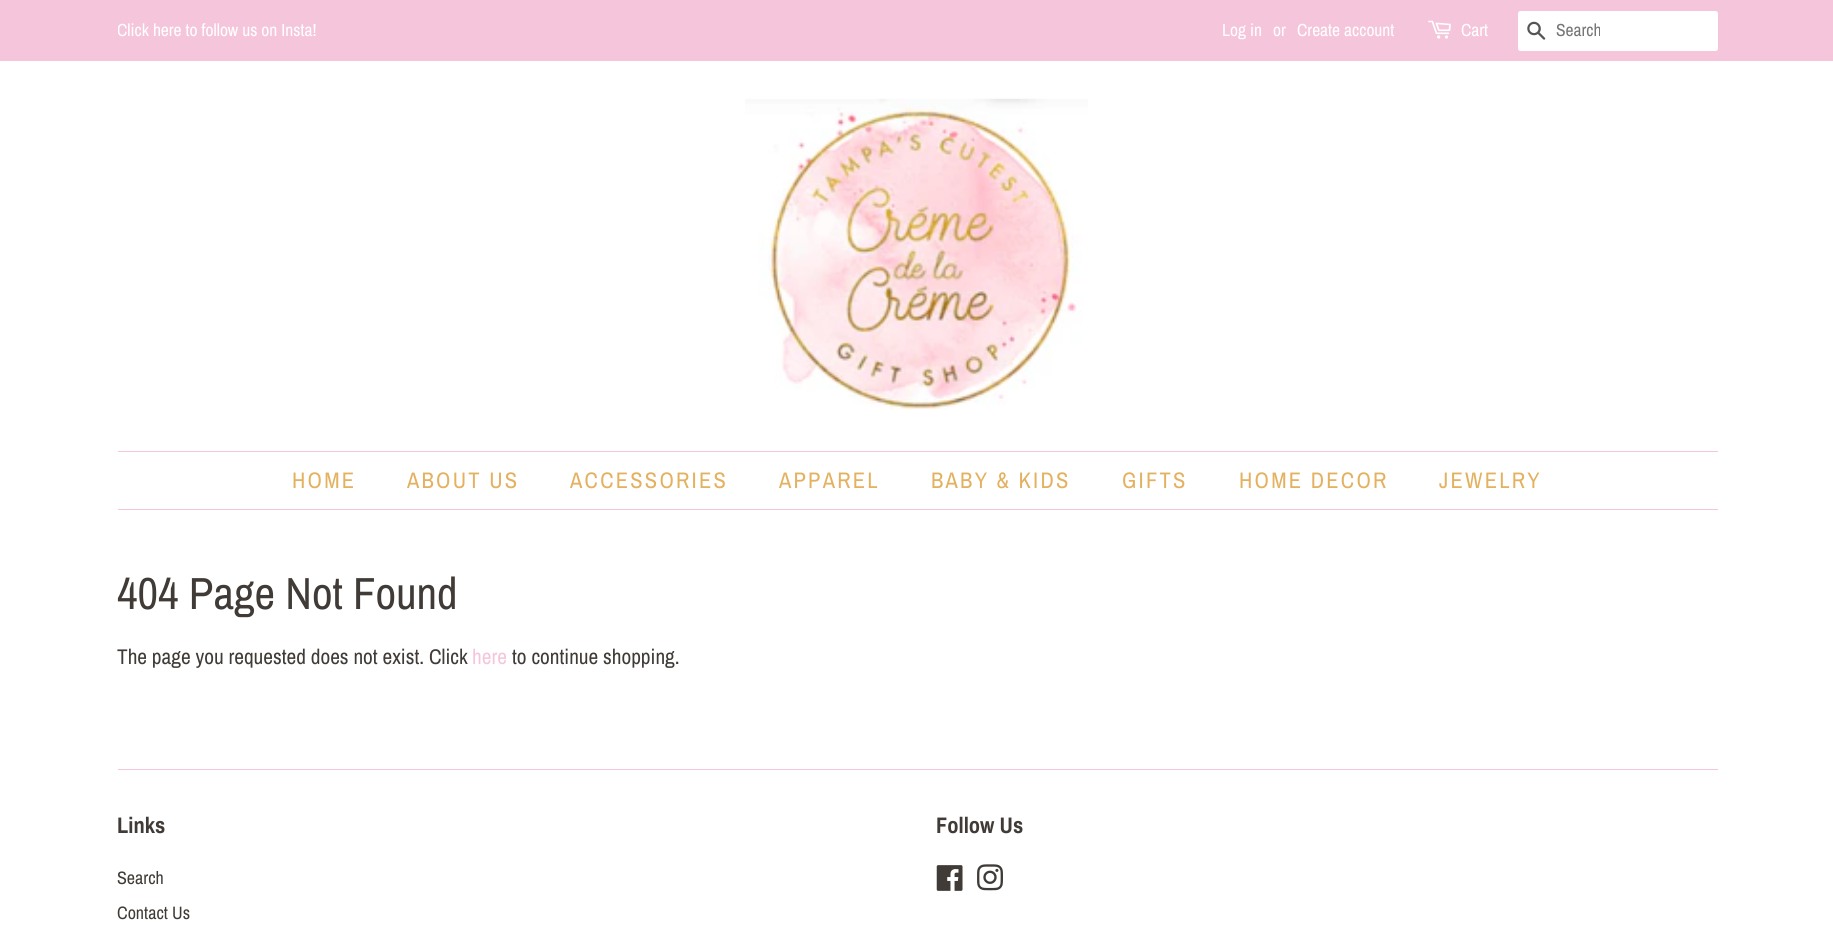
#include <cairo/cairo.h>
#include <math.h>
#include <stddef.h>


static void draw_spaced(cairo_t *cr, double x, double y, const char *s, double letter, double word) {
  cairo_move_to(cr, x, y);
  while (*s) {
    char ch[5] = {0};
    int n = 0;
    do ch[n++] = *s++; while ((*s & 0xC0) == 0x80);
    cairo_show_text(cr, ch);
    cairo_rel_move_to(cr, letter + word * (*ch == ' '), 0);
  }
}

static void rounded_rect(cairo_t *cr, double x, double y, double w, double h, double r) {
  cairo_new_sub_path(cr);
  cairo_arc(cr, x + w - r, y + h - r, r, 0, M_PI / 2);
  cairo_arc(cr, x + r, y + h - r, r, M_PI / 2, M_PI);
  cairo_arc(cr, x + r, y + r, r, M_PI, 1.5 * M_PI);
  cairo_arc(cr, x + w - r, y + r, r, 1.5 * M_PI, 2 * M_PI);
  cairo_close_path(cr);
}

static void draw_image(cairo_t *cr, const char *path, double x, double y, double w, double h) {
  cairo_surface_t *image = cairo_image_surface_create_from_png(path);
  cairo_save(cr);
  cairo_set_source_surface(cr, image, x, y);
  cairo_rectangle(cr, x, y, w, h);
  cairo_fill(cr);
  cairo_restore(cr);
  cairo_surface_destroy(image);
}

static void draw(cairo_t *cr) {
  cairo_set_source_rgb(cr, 1, 1, 1);
  cairo_paint(cr);
  cairo_set_source_rgb(cr, 245 / 255.0, 198 / 255.0, 219 / 255.0);
  cairo_rectangle(cr, 0, 0, 1833, 61);
  cairo_fill(cr);
  draw_image(cr, "images/1.png", 1428, 20, 23, 19);
  cairo_set_source_rgb(cr, 1, 1, 1);
  rounded_rect(cr, 1518, 11, 200, 40, 2.5);
  cairo_fill(cr);
  draw_image(cr, "images/2.png", 1527, 21, 19, 19);
  draw_image(cr, "images/3.png", 745, 98, 343, 312);
  cairo_set_source_rgb(cr, 245 / 255.0, 198 / 255.0, 219 / 255.0);
  cairo_rectangle(cr, 118, 451, 1600, 1);
  cairo_fill(cr);
  cairo_rectangle(cr, 118, 509, 1600, 1);
  cairo_fill(cr);
  cairo_rectangle(cr, 118, 769, 1600, 1);
  cairo_fill(cr);
  draw_image(cr, "images/4.png", 936, 865, 27, 26);
  draw_image(cr, "images/5.png", 977, 864, 26, 27);
  cairo_save(cr);
  cairo_rectangle(cr, 118, 16, 198, 30);
  cairo_clip(cr);
  cairo_select_font_face(cr, "Archivo Narrow", CAIRO_FONT_SLANT_NORMAL, CAIRO_FONT_WEIGHT_NORMAL);
  cairo_set_font_size(cr, 17.5);
  cairo_set_source_rgb(cr, 1, 1, 1);
  cairo_move_to(cr, 117, 36);
  cairo_show_text(cr, "Click here to follow us on Insta!");
  cairo_restore(cr);
  cairo_select_font_face(cr, "Archivo Narrow", CAIRO_FONT_SLANT_NORMAL, CAIRO_FONT_WEIGHT_NORMAL);
  cairo_set_font_size(cr, 17.5);
  cairo_set_source_rgb(cr, 1, 1, 1);
  cairo_move_to(cr, 1222, 36);
  cairo_show_text(cr, "Log in");
  cairo_move_to(cr, 1273, 36);
  cairo_show_text(cr, "or");
  cairo_move_to(cr, 1297, 36);
  cairo_show_text(cr, "Create account");
  cairo_move_to(cr, 1461, 36);
  cairo_show_text(cr, "Cart");
  cairo_set_source_rgb(cr, 117 / 255.0, 117 / 255.0, 117 / 255.0);
  cairo_move_to(cr, 1556, 36);
  cairo_show_text(cr, "Search");
  cairo_set_font_size(cr, 22.5);
  cairo_set_source_rgb(cr, 227 / 255.0, 177 / 255.0, 96 / 255.0);
  draw_spaced(cr, 292, 488, "HOME", 2.25, 0);
  draw_spaced(cr, 407, 488, "ABOUT US", 2.25, 0);
  draw_spaced(cr, 570, 488, "ACCESSORIES", 2.25, 0);
  draw_spaced(cr, 779, 488, "APPAREL", 2.25, 0);
  draw_spaced(cr, 931, 488, "BABY & KIDS", 2.25, 0);
  draw_spaced(cr, 1122, 488, "GIFTS", 2.25, 0);
  draw_spaced(cr, 1239, 488, "HOME DECOR", 2.25, 0);
  draw_spaced(cr, 1439, 488, "JEWELRY", 2.25, 0);
  cairo_set_font_size(cr, 45);
  cairo_set_source_rgb(cr, 64 / 255.0, 59 / 255.0, 55 / 255.0);
  cairo_move_to(cr, 117, 609);
  cairo_show_text(cr, "404 Page Not Found");
  cairo_set_font_size(cr, 21.25);
  cairo_move_to(cr, 117, 664);
  cairo_show_text(cr, "The page you requested does not exist. Click");
  cairo_set_source_rgb(cr, 245 / 255.0, 198 / 255.0, 219 / 255.0);
  cairo_move_to(cr, 472, 664);
  cairo_show_text(cr, "here");
  cairo_set_source_rgb(cr, 64 / 255.0, 59 / 255.0, 55 / 255.0);
  cairo_move_to(cr, 512, 664);
  cairo_show_text(cr, "to continue shopping.");
  cairo_select_font_face(cr, "Archivo Narrow", CAIRO_FONT_SLANT_NORMAL, CAIRO_FONT_WEIGHT_BOLD);
  cairo_set_font_size(cr, 22.5);
  cairo_move_to(cr, 117, 833);
  cairo_show_text(cr, "Links");
  cairo_select_font_face(cr, "Archivo Narrow", CAIRO_FONT_SLANT_NORMAL, CAIRO_FONT_WEIGHT_NORMAL);
  cairo_set_font_size(cr, 18);
  cairo_move_to(cr, 117, 884);
  cairo_show_text(cr, "Search");
  cairo_move_to(cr, 117, 919);
  cairo_show_text(cr, "Contact Us");
  cairo_select_font_face(cr, "Archivo Narrow", CAIRO_FONT_SLANT_NORMAL, CAIRO_FONT_WEIGHT_BOLD);
  cairo_set_font_size(cr, 22.5);
  cairo_move_to(cr, 936, 833);
  cairo_show_text(cr, "Follow Us");
}

int main(void) {
  cairo_surface_t *surface = cairo_image_surface_create(CAIRO_FORMAT_RGB24, 1833, 945);
  cairo_t *cr = cairo_create(surface);
  cairo_font_options_t *options = cairo_font_options_create();
  cairo_font_options_set_hint_metrics(options, CAIRO_HINT_METRICS_OFF);
  cairo_font_options_set_hint_style(options, CAIRO_HINT_STYLE_NONE);
  cairo_set_font_options(cr, options);
  cairo_set_miter_limit(cr, 4);
  draw(cr);
  cairo_surface_write_to_png(surface, "out.png");
  cairo_font_options_destroy(options);
  cairo_destroy(cr);
  cairo_surface_destroy(surface);
  return 0;
}
